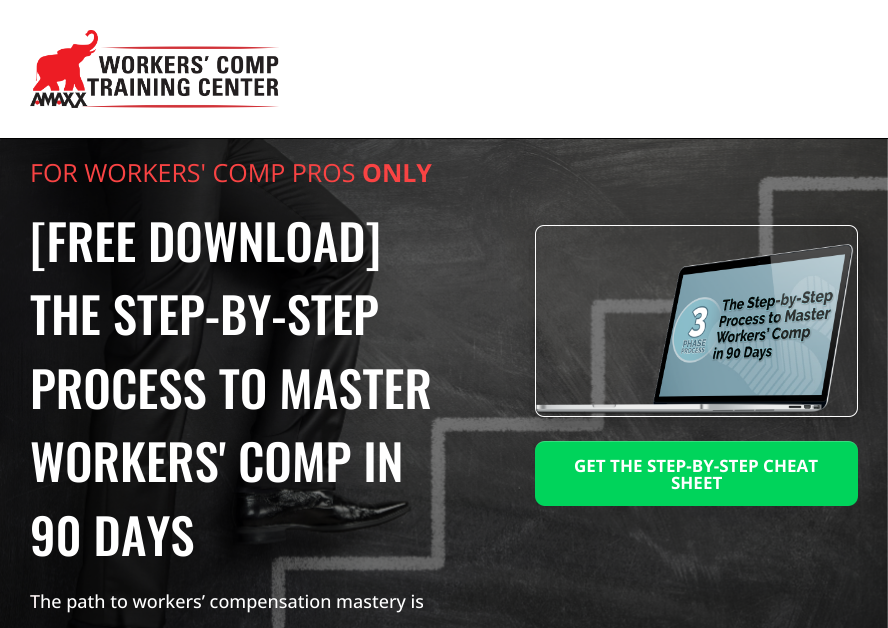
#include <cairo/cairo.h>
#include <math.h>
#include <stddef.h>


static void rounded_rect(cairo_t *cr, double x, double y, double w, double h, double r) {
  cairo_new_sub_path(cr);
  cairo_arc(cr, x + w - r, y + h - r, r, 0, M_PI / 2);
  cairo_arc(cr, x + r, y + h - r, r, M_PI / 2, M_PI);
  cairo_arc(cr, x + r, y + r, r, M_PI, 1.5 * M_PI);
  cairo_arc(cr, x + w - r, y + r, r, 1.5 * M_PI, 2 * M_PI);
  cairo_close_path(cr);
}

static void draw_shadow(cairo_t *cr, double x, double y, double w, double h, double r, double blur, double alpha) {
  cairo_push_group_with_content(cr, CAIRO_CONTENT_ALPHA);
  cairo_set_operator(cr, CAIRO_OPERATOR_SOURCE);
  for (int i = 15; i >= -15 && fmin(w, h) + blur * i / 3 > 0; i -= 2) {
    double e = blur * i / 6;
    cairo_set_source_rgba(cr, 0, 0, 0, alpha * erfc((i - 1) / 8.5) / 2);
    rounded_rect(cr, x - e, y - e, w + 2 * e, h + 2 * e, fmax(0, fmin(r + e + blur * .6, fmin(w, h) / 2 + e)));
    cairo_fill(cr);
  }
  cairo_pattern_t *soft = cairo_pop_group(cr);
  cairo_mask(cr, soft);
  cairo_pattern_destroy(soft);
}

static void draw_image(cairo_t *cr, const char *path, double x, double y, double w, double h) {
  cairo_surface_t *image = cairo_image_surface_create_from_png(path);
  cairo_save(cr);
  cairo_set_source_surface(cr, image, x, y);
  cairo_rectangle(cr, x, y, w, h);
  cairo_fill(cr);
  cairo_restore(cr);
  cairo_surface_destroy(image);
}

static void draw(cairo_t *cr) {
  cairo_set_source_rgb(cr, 1, 1, 1);
  cairo_paint(cr);
  draw_image(cr, "images/1.png", 30, 30, 249, 78);
  cairo_set_source_rgb(cr, 0, 0, 0);
  cairo_rectangle(cr, 0, 138, 888, 1);
  cairo_fill(cr);
  draw_image(cr, "images/2.png", 0, 139, 888, 489);
  cairo_save(cr);
  cairo_set_fill_rule(cr, CAIRO_FILL_RULE_EVEN_ODD);
  cairo_new_path(cr);
  cairo_move_to(cr, 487, 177);
  cairo_line_to(cr, 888, 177);
  cairo_line_to(cr, 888, 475);
  cairo_line_to(cr, 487, 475);
  cairo_close_path(cr);
  cairo_move_to(cr, 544, 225);
  cairo_line_to(cr, 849, 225);
  cairo_curve_to(cr, 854, 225, 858, 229, 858, 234);
  cairo_line_to(cr, 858, 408);
  cairo_curve_to(cr, 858, 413, 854, 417, 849, 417);
  cairo_line_to(cr, 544, 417);
  cairo_curve_to(cr, 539, 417, 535, 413, 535, 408);
  cairo_line_to(cr, 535, 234);
  cairo_curve_to(cr, 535, 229, 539, 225, 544, 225);
  cairo_close_path(cr);
  cairo_clip(cr);
  cairo_set_source_rgb(cr, 0, 0, 0);
  draw_shadow(cr, 544, 234, 315, 184, 5, 18.5, 0.43);
  cairo_restore(cr);
  rounded_rect(cr, 535.5, 225.5, 322, 191, 8.5);
  cairo_set_source_rgb(cr, 1, 1, 1);
  cairo_set_line_width(cr, 1);
  cairo_stroke(cr);
  draw_image(cr, "images/3.png", 536, 244, 318, 171);
  cairo_set_source_rgb(cr, 0, 212 / 255.0, 91 / 255.0);
  rounded_rect(cr, 535, 441, 323, 65, 10);
  cairo_fill(cr);
  cairo_set_source_rgba(cr, 1, 1, 1, 0.22);
  cairo_new_path(cr);
  cairo_move_to(cr, 545, 442);
  cairo_curve_to(cr, 539, 442, 535, 446, 535, 452);
  cairo_line_to(cr, 535, 451);
  cairo_curve_to(cr, 535, 445, 539, 441, 545, 441);
  cairo_line_to(cr, 848, 441);
  cairo_curve_to(cr, 854, 441, 858, 445, 858, 451);
  cairo_line_to(cr, 858, 452);
  cairo_curve_to(cr, 858, 446, 854, 442, 848, 442);
  cairo_close_path(cr);
  cairo_fill(cr);
  cairo_select_font_face(cr, "Open Sans", CAIRO_FONT_SLANT_NORMAL, CAIRO_FONT_WEIGHT_NORMAL);
  cairo_set_font_size(cr, 25);
  cairo_set_source_rgb(cr, 249 / 255.0, 67 / 255.0, 67 / 255.0);
  cairo_move_to(cr, 30, 182);
  cairo_show_text(cr, "FOR WORKERS' COMP PROS");
  cairo_select_font_face(cr, "Open Sans", CAIRO_FONT_SLANT_NORMAL, CAIRO_FONT_WEIGHT_BOLD);
  cairo_move_to(cr, 362, 182);
  cairo_show_text(cr, "ONLY");
  cairo_select_font_face(cr, "Oswald Medium", CAIRO_FONT_SLANT_NORMAL, CAIRO_FONT_WEIGHT_NORMAL);
  cairo_set_font_size(cr, 49);
  cairo_set_source_rgb(cr, 1, 1, 1);
  cairo_move_to(cr, 30, 262);
  cairo_show_text(cr, "[FREE DOWNLOAD]");
  cairo_move_to(cr, 30, 335);
  cairo_show_text(cr, "THE STEP-BY-STEP");
  cairo_move_to(cr, 30, 409);
  cairo_show_text(cr, "PROCESS TO MASTER");
  cairo_move_to(cr, 30, 482);
  cairo_show_text(cr, "WORKERS' COMP IN");
  cairo_move_to(cr, 30, 556);
  cairo_show_text(cr, "90 DAYS");
  cairo_select_font_face(cr, "Open Sans Medium", CAIRO_FONT_SLANT_NORMAL, CAIRO_FONT_WEIGHT_NORMAL);
  cairo_set_font_size(cr, 18);
  cairo_set_source_rgb(cr, 1, 245 / 255.0, 245 / 255.0);
  cairo_move_to(cr, 30, 608);
  cairo_show_text(cr, "T");
  cairo_set_source_rgb(cr, 1, 1, 1);
  cairo_move_to(cr, 40, 608);
  cairo_show_text(cr, "he path to workers’ compensation mastery is");
  cairo_select_font_face(cr, "Open Sans", CAIRO_FONT_SLANT_NORMAL, CAIRO_FONT_WEIGHT_BOLD);
  cairo_set_font_size(cr, 17);
  cairo_move_to(cr, 574, 472);
  cairo_show_text(cr, "GET THE STEP-BY-STEP CHEAT");
  cairo_move_to(cr, 671, 489);
  cairo_show_text(cr, "SHEET");
}

int main(void) {
  cairo_surface_t *surface = cairo_image_surface_create(CAIRO_FORMAT_RGB24, 888, 628);
  cairo_t *cr = cairo_create(surface);
  cairo_font_options_t *options = cairo_font_options_create();
  cairo_font_options_set_hint_metrics(options, CAIRO_HINT_METRICS_OFF);
  cairo_font_options_set_hint_style(options, CAIRO_HINT_STYLE_NONE);
  cairo_set_font_options(cr, options);
  cairo_set_miter_limit(cr, 4);
  draw(cr);
  cairo_surface_write_to_png(surface, "out.png");
  cairo_font_options_destroy(options);
  cairo_destroy(cr);
  cairo_surface_destroy(surface);
  return 0;
}
